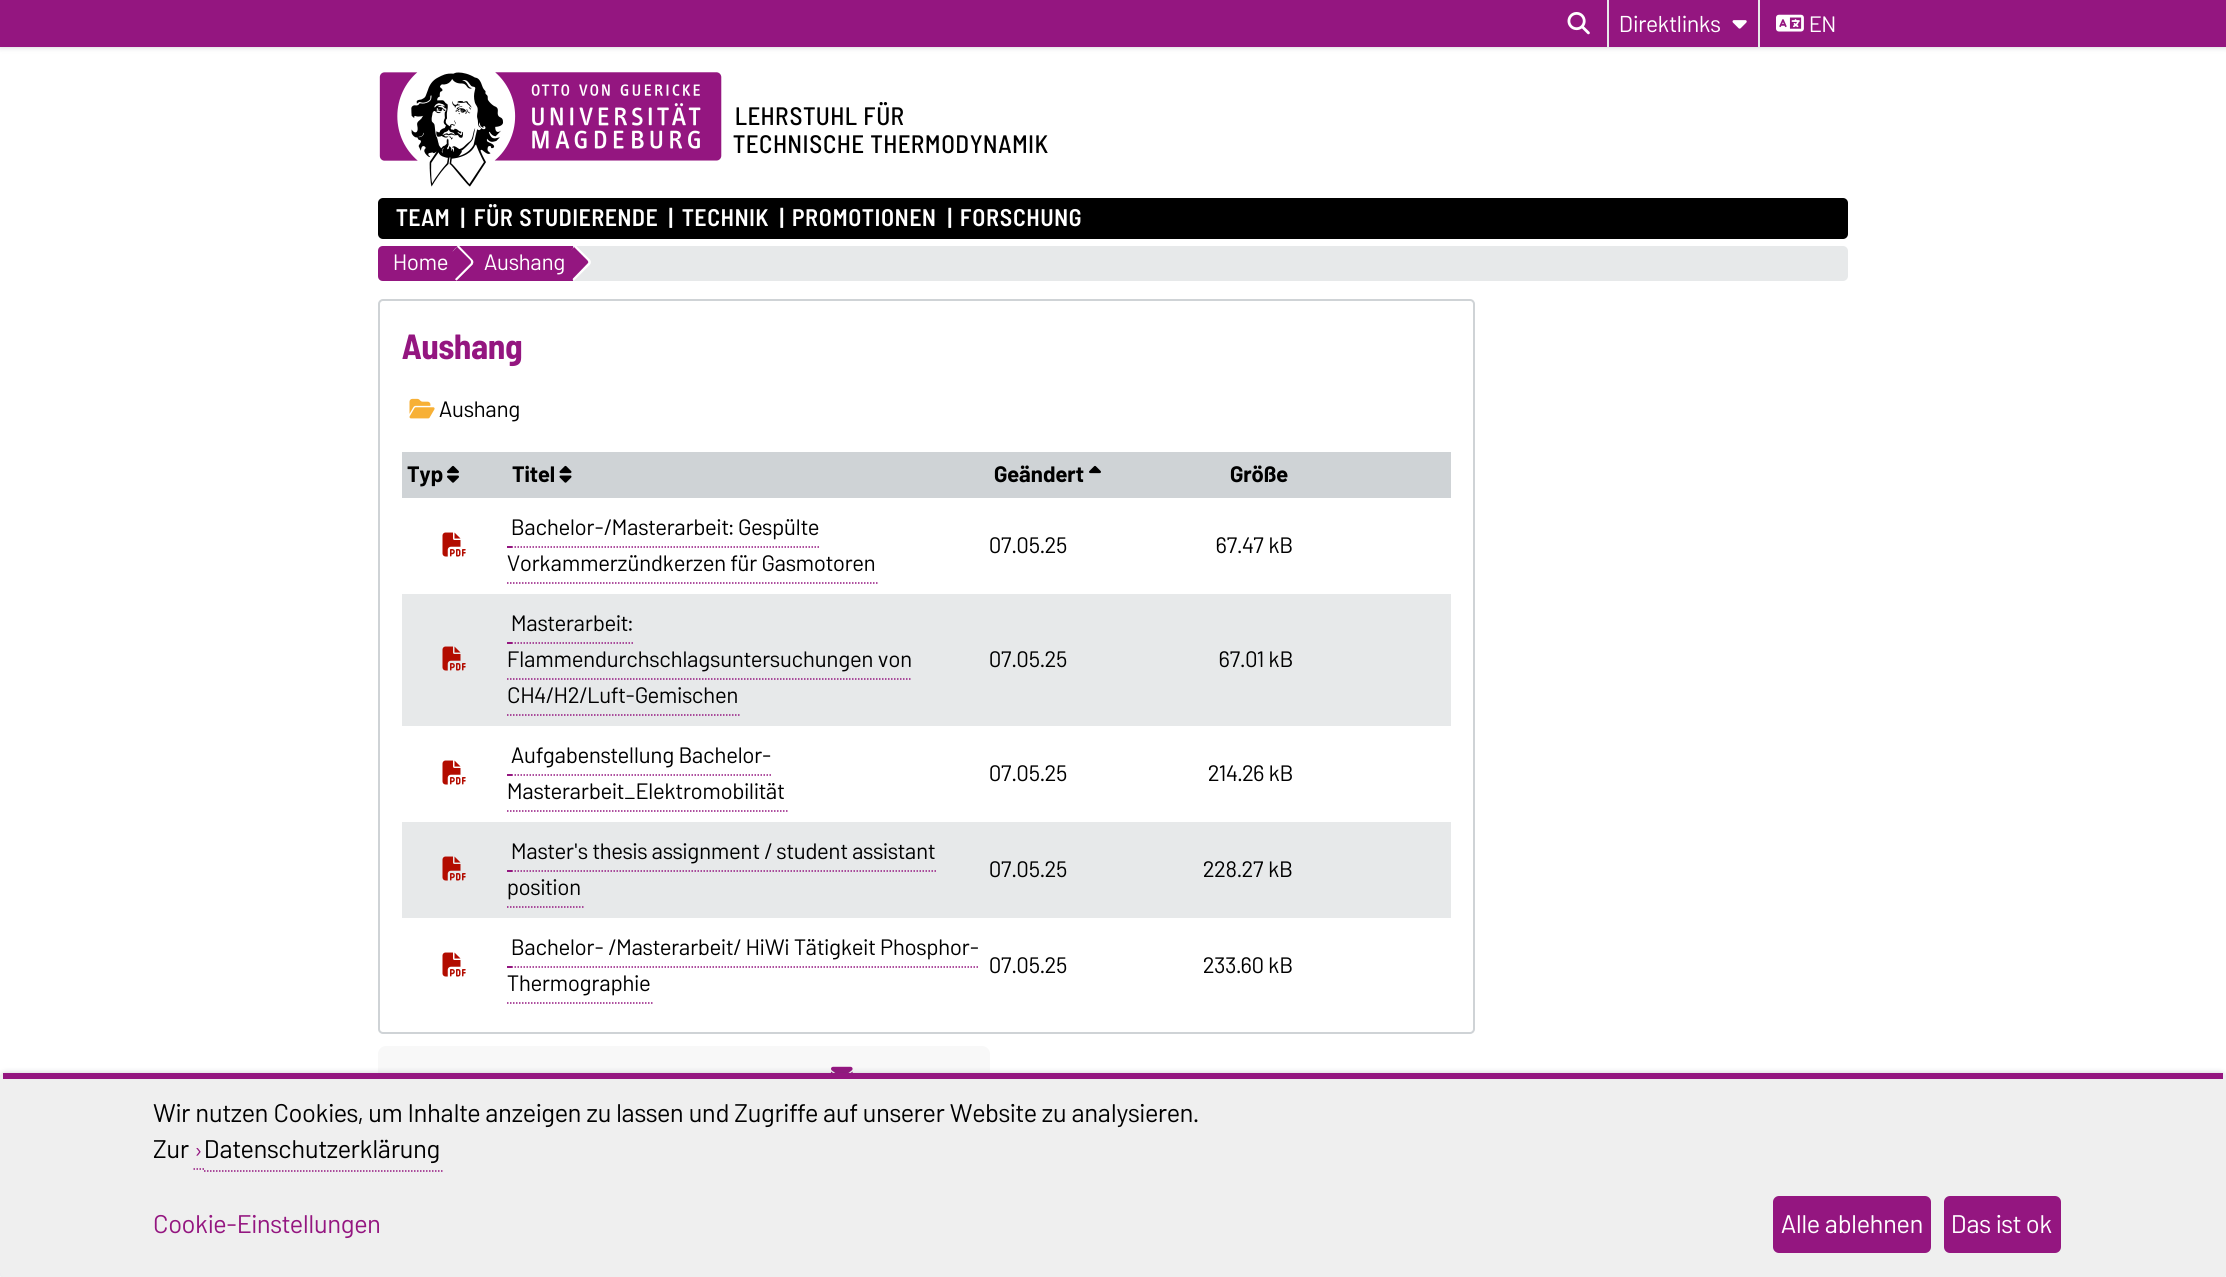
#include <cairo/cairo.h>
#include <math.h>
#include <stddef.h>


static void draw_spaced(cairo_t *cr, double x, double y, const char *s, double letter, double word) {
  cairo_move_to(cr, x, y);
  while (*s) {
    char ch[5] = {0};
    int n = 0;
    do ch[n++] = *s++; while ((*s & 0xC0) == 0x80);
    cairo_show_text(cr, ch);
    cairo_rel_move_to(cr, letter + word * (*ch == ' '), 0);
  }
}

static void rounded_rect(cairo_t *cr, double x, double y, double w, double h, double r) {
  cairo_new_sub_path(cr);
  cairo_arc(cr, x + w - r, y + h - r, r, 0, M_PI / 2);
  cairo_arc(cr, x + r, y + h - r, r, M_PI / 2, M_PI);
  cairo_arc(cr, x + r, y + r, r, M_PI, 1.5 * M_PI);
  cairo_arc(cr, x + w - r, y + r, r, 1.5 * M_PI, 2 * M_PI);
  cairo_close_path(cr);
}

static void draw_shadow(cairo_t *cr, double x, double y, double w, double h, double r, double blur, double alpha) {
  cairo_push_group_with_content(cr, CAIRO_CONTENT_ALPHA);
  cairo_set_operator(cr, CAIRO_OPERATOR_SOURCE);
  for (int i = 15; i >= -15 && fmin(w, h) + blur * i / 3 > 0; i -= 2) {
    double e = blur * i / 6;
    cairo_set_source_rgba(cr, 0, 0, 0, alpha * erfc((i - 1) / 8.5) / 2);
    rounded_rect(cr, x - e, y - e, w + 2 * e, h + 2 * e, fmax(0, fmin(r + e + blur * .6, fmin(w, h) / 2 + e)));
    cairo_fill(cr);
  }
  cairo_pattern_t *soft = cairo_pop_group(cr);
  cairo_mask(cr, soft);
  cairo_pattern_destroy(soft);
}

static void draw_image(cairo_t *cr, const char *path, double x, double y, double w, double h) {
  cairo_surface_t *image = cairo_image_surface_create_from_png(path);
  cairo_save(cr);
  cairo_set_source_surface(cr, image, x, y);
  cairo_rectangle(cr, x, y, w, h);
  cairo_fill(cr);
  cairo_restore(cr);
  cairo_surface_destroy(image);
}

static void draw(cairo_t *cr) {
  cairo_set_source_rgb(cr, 1, 1, 1);
  cairo_paint(cr);
  cairo_set_source_rgb(cr, 67 / 255.0, 71 / 255.0, 85 / 255.0);
  draw_shadow(cr, 0, 0, 2226, 47, 0, 3, 0.27);
  cairo_set_source_rgb(cr, 148 / 255.0, 22 / 255.0, 128 / 255.0);
  cairo_rectangle(cr, 0, 0, 2226, 47);
  cairo_fill(cr);
  draw_image(cr, "images/1.png", 1567, 12, 23, 23);
  cairo_set_source_rgb(cr, 231 / 255.0, 233 / 255.0, 234 / 255.0);
  cairo_rectangle(cr, 1758, 0, 2, 47);
  cairo_fill(cr);
  cairo_rectangle(cr, 1607, 0, 2, 47);
  cairo_fill(cr);
  draw_image(cr, "images/2.png", 1732, 20, 15, 9);
  draw_image(cr, "images/3.png", 1776, 14, 28, 18);
  draw_image(cr, "images/4.png", 379, 72, 343, 115);
  cairo_set_source_rgb(cr, 0, 0, 0);
  rounded_rect(cr, 378, 198, 1470, 41, 5);
  cairo_fill(cr);
  cairo_set_source_rgb(cr, 231 / 255.0, 233 / 255.0, 234 / 255.0);
  rounded_rect(cr, 378, 246, 1470, 35, 5);
  cairo_fill(cr);
  cairo_set_source_rgb(cr, 148 / 255.0, 22 / 255.0, 128 / 255.0);
  cairo_new_path(cr);
  cairo_move_to(cr, 383, 246);
  cairo_line_to(cr, 456, 246);
  cairo_line_to(cr, 456, 281);
  cairo_line_to(cr, 383, 281);
  cairo_curve_to(cr, 380, 281, 378, 279, 378, 276);
  cairo_line_to(cr, 378, 251);
  cairo_curve_to(cr, 378, 248, 380, 246, 383, 246);
  cairo_close_path(cr);
  cairo_fill(cr);
  cairo_rectangle(cr, 456, 246, 117, 35);
  cairo_fill(cr);
  cairo_set_source_rgb(cr, 244 / 255.0, 232 / 255.0, 242 / 255.0);
  cairo_new_path(cr);
  cairo_move_to(cr, 458.5, 245.5);
  cairo_curve_to(cr, 456, 247.5, 454, 249.5, 452.5, 252);
  cairo_line_to(cr, 457, 247);
  cairo_line_to(cr, 470.5, 260.5);
  cairo_curve_to(cr, 471, 261.5, 471, 263, 470.5, 263.5);
  cairo_line_to(cr, 455, 279);
  cairo_line_to(cr, 456.5, 280.5);
  cairo_line_to(cr, 472.5, 264.5);
  cairo_curve_to(cr, 473.5, 263, 473.5, 261, 472.5, 260);
  cairo_close_path(cr);
  cairo_fill(cr);
  cairo_set_source_rgba(cr, 1, 1, 1, 0.9);
  cairo_new_path(cr);
  cairo_move_to(cr, 458.5, 245.5);
  cairo_curve_to(cr, 456, 247.5, 454, 249.5, 452.5, 252);
  cairo_line_to(cr, 457, 247);
  cairo_line_to(cr, 470.5, 260.5);
  cairo_curve_to(cr, 471, 261.5, 471, 263, 470.5, 263.5);
  cairo_line_to(cr, 455, 279);
  cairo_line_to(cr, 456.5, 280.5);
  cairo_line_to(cr, 472.5, 264.5);
  cairo_curve_to(cr, 473.5, 263, 473.5, 261, 472.5, 260);
  cairo_close_path(cr);
  cairo_fill(cr);
  cairo_set_source_rgb(cr, 148 / 255.0, 22 / 255.0, 128 / 255.0);
  cairo_new_path(cr);
  cairo_move_to(cr, 457, 247);
  cairo_line_to(cr, 470.5, 260.5);
  cairo_curve_to(cr, 471, 261.5, 471, 263, 470.5, 263.5);
  cairo_line_to(cr, 455, 279);
  cairo_curve_to(cr, 446.5, 270.5, 446.5, 257.5, 455, 249);
  cairo_close_path(cr);
  cairo_fill(cr);
  cairo_set_source_rgb(cr, 253 / 255.0, 253 / 255.0, 253 / 255.0);
  cairo_new_path(cr);
  cairo_move_to(cr, 575.5, 245.5);
  cairo_curve_to(cr, 573.5, 247.5, 572, 249, 570.5, 251);
  cairo_line_to(cr, 574, 247);
  cairo_line_to(cr, 587.5, 260.5);
  cairo_curve_to(cr, 588.5, 261.5, 588.5, 263, 587.5, 263.5);
  cairo_line_to(cr, 572.5, 279);
  cairo_line_to(cr, 574, 280.5);
  cairo_line_to(cr, 590, 264.5);
  cairo_curve_to(cr, 591, 263, 591, 261, 590, 260);
  cairo_close_path(cr);
  cairo_fill(cr);
  cairo_set_source_rgba(cr, 1, 1, 1, 0.9);
  cairo_new_path(cr);
  cairo_move_to(cr, 575.5, 245.5);
  cairo_curve_to(cr, 573.5, 247.5, 572, 249, 570.5, 251);
  cairo_line_to(cr, 574, 247);
  cairo_line_to(cr, 587.5, 260.5);
  cairo_curve_to(cr, 588.5, 261.5, 588.5, 263, 587.5, 263.5);
  cairo_line_to(cr, 572.5, 279);
  cairo_line_to(cr, 574, 280.5);
  cairo_line_to(cr, 590, 264.5);
  cairo_curve_to(cr, 591, 263, 591, 261, 590, 260);
  cairo_close_path(cr);
  cairo_fill(cr);
  cairo_set_source_rgb(cr, 148 / 255.0, 22 / 255.0, 128 / 255.0);
  cairo_new_path(cr);
  cairo_move_to(cr, 574, 247);
  cairo_line_to(cr, 587.5, 260.5);
  cairo_curve_to(cr, 588.5, 261.5, 588.5, 263, 587.5, 263.5);
  cairo_line_to(cr, 572.5, 279);
  cairo_curve_to(cr, 564, 270.5, 564, 257.5, 572.5, 249);
  cairo_close_path(cr);
  cairo_fill(cr);
  rounded_rect(cr, 379, 300, 1095, 733, 4);
  cairo_set_source_rgb(cr, 207 / 255.0, 211 / 255.0, 214 / 255.0);
  cairo_stroke(cr);
  draw_image(cr, "images/5.png", 409, 398, 26, 21);
  cairo_rectangle(cr, 402, 452, 1049, 46);
  cairo_fill(cr);
  draw_image(cr, "images/6.png", 447, 465, 12, 18);
  draw_image(cr, "images/7.png", 559, 465, 13, 18);
  draw_image(cr, "images/8.png", 1089, 465, 12, 9);
  draw_image(cr, "images/9.png", 442, 532, 24, 25);
  cairo_set_source_rgb(cr, 148 / 255.0, 22 / 255.0, 128 / 255.0);
  cairo_rectangle(cr, 507, 546, 5, 2);
  cairo_fill(cr);
  cairo_new_path(cr);
  cairo_move_to(cr, 511.5, 547);
  cairo_line_to(cr, 819, 547);
  cairo_set_line_width(cr, 1.5);
  cairo_set_dash(cr, (double[]){1.5, 1.5}, 2, 0);
  cairo_stroke(cr);
  cairo_new_path(cr);
  cairo_move_to(cr, 507, 583);
  cairo_line_to(cr, 879, 583);
  cairo_stroke(cr);
  cairo_set_source_rgb(cr, 231 / 255.0, 233 / 255.0, 234 / 255.0);
  cairo_rectangle(cr, 402, 594, 1049, 132);
  cairo_fill(cr);
  draw_image(cr, "images/10.png", 442, 646, 24, 25);
  cairo_set_source_rgb(cr, 148 / 255.0, 22 / 255.0, 128 / 255.0);
  cairo_rectangle(cr, 507, 642, 5, 2);
  cairo_fill(cr);
  cairo_new_path(cr);
  cairo_move_to(cr, 511.5, 643);
  cairo_line_to(cr, 633, 643);
  cairo_stroke(cr);
  cairo_new_path(cr);
  cairo_move_to(cr, 507, 679);
  cairo_line_to(cr, 912, 679);
  cairo_stroke(cr);
  cairo_new_path(cr);
  cairo_move_to(cr, 507, 715);
  cairo_line_to(cr, 741, 715);
  cairo_stroke(cr);
  draw_image(cr, "images/9.png", 442, 760, 24, 25);
  cairo_rectangle(cr, 507, 774, 5, 2);
  cairo_fill(cr);
  cairo_new_path(cr);
  cairo_move_to(cr, 511.5, 775);
  cairo_line_to(cr, 771, 775);
  cairo_stroke(cr);
  cairo_new_path(cr);
  cairo_move_to(cr, 507, 811);
  cairo_line_to(cr, 787.5, 811);
  cairo_stroke(cr);
  cairo_set_source_rgb(cr, 231 / 255.0, 233 / 255.0, 234 / 255.0);
  cairo_rectangle(cr, 402, 822, 1049, 96);
  cairo_fill(cr);
  draw_image(cr, "images/10.png", 442, 856, 24, 25);
  cairo_set_source_rgb(cr, 148 / 255.0, 22 / 255.0, 128 / 255.0);
  cairo_rectangle(cr, 507, 870, 5, 2);
  cairo_fill(cr);
  cairo_new_path(cr);
  cairo_move_to(cr, 511.5, 871);
  cairo_line_to(cr, 936, 871);
  cairo_stroke(cr);
  cairo_new_path(cr);
  cairo_move_to(cr, 507, 907);
  cairo_line_to(cr, 583.5, 907);
  cairo_stroke(cr);
  draw_image(cr, "images/9.png", 442, 952, 24, 25);
  cairo_rectangle(cr, 507, 966, 5, 2);
  cairo_fill(cr);
  cairo_new_path(cr);
  cairo_move_to(cr, 511.5, 967);
  cairo_line_to(cr, 979.5, 967);
  cairo_stroke(cr);
  cairo_new_path(cr);
  cairo_move_to(cr, 507, 1003);
  cairo_line_to(cr, 654, 1003);
  cairo_stroke(cr);
  cairo_set_source_rgb(cr, 248 / 255.0, 248 / 255.0, 248 / 255.0);
  cairo_new_path(cr);
  cairo_move_to(cr, 386, 1046);
  cairo_line_to(cr, 982, 1046);
  cairo_curve_to(cr, 986.5, 1046, 990, 1049.5, 990, 1054);
  cairo_line_to(cr, 990, 1106);
  cairo_line_to(cr, 378, 1106);
  cairo_line_to(cr, 378, 1054);
  cairo_curve_to(cr, 378, 1049.5, 381.5, 1046, 386, 1046);
  cairo_close_path(cr);
  cairo_fill(cr);
  draw_image(cr, "images/11.png", 831, 1066, 22, 7);
  cairo_set_source_rgb(cr, 67 / 255.0, 71 / 255.0, 85 / 255.0);
  draw_shadow(cr, 0, 1073, 2226, 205, 6, 3, 0.27);
  cairo_set_source_rgb(cr, 239 / 255.0, 239 / 255.0, 239 / 255.0);
  rounded_rect(cr, 0, 1073, 2226, 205, 6);
  cairo_fill(cr);
  cairo_set_source_rgb(cr, 148 / 255.0, 22 / 255.0, 128 / 255.0);
  cairo_rectangle(cr, 3, 1073, 2220, 6);
  cairo_fill(cr);
  cairo_new_path(cr);
  cairo_move_to(cr, 193.5, 1169);
  cairo_line_to(cr, 195, 1169);
  cairo_move_to(cr, 196.5, 1169);
  cairo_line_to(cr, 198, 1169);
  cairo_move_to(cr, 199.5, 1169);
  cairo_line_to(cr, 201, 1169);
  cairo_move_to(cr, 202.5, 1169);
  cairo_line_to(cr, 204, 1169);
  cairo_set_dash(cr, NULL, 0, 0);
  cairo_stroke(cr);
  cairo_new_path(cr);
  cairo_move_to(cr, 204, 1171);
  cairo_line_to(cr, 444, 1171);
  cairo_set_dash(cr, (double[]){1.5, 1.5}, 2, 0);
  cairo_stroke(cr);
  rounded_rect(cr, 1773, 1196, 158, 57, 6);
  cairo_fill(cr);
  rounded_rect(cr, 1944, 1196, 117, 57, 6);
  cairo_fill(cr);
  cairo_select_font_face(cr, "Barlow", CAIRO_FONT_SLANT_NORMAL, CAIRO_FONT_WEIGHT_NORMAL);
  cairo_set_font_size(cr, 23);
  cairo_set_source_rgb(cr, 1, 1, 1);
  cairo_move_to(cr, 1619, 32);
  cairo_show_text(cr, "Direktlinks");
  cairo_set_font_size(cr, 22.3);
  cairo_move_to(cr, 1809, 32);
  cairo_show_text(cr, "EN");
  cairo_select_font_face(cr, "Barlow Semi Condensed Medium", CAIRO_FONT_SLANT_NORMAL, CAIRO_FONT_WEIGHT_NORMAL);
  cairo_set_font_size(cr, 25.25);
  cairo_set_source_rgb(cr, 0, 0, 0);
  draw_spaced(cr, 735, 125, "LEHRSTUHL FÜR", 0.8, 0);
  draw_spaced(cr, 733, 153, "TECHNISCHE THERMODYNAMIK", 0.8, 0);
  cairo_select_font_face(cr, "Barlow Semi Condensed SemiBold", CAIRO_FONT_SLANT_NORMAL, CAIRO_FONT_WEIGHT_NORMAL);
  cairo_set_font_size(cr, 24);
  cairo_set_source_rgb(cr, 1, 1, 1);
  draw_spaced(cr, 396, 226, "TEAM", 0.8, 0);
  draw_spaced(cr, 460, 226, "|", 0.8, 0);
  draw_spaced(cr, 474, 226, "FÜR STUDIERENDE", 0.8, 0);
  draw_spaced(cr, 668, 226, "|", 0.8, 0);
  draw_spaced(cr, 682, 226, "TECHNIK", 0.8, 0);
  draw_spaced(cr, 779, 226, "|", 0.8, 0);
  draw_spaced(cr, 792, 226, "PROMOTIONEN", 0.8, 0);
  draw_spaced(cr, 947, 226, "|", 0.8, 0);
  draw_spaced(cr, 960, 226, "FORSCHUNG", 0.8, 0);
  cairo_select_font_face(cr, "Barlow", CAIRO_FONT_SLANT_NORMAL, CAIRO_FONT_WEIGHT_NORMAL);
  cairo_set_font_size(cr, 22.3);
  cairo_move_to(cr, 393, 270);
  cairo_show_text(cr, "Home");
  cairo_move_to(cr, 484, 270);
  cairo_show_text(cr, "Aushang");
  cairo_select_font_face(cr, "Barlow Semi Condensed", CAIRO_FONT_SLANT_NORMAL, CAIRO_FONT_WEIGHT_BOLD);
  cairo_set_font_size(cr, 35);
  cairo_set_source_rgb(cr, 148 / 255.0, 22 / 255.0, 128 / 255.0);
  cairo_move_to(cr, 402, 359);
  cairo_show_text(cr, "Aushang");
  cairo_select_font_face(cr, "Barlow", CAIRO_FONT_SLANT_NORMAL, CAIRO_FONT_WEIGHT_NORMAL);
  cairo_set_font_size(cr, 22.3);
  cairo_set_source_rgb(cr, 0, 0, 0);
  cairo_move_to(cr, 439, 417);
  cairo_show_text(cr, "Aushang");
  cairo_select_font_face(cr, "Barlow", CAIRO_FONT_SLANT_NORMAL, CAIRO_FONT_WEIGHT_BOLD);
  cairo_move_to(cr, 407, 482);
  cairo_show_text(cr, "Typ");
  cairo_move_to(cr, 512, 482);
  cairo_show_text(cr, "Titel");
  cairo_move_to(cr, 994, 482);
  cairo_show_text(cr, "Geändert");
  cairo_move_to(cr, 1230, 482);
  cairo_show_text(cr, "Größe");
  cairo_select_font_face(cr, "Barlow", CAIRO_FONT_SLANT_NORMAL, CAIRO_FONT_WEIGHT_NORMAL);
  cairo_move_to(cr, 511, 535);
  cairo_show_text(cr, "Bachelor-/Masterarbeit: Gespülte");
  cairo_move_to(cr, 507, 571);
  cairo_show_text(cr, "Vorkammerzündkerzen für Gasmotoren");
  cairo_move_to(cr, 989, 553);
  cairo_show_text(cr, "07.05.25");
  cairo_move_to(cr, 1216, 553);
  cairo_show_text(cr, "67.47 kB");
  cairo_move_to(cr, 511, 631);
  cairo_show_text(cr, "Masterarbeit:");
  cairo_move_to(cr, 507, 667);
  cairo_show_text(cr, "Flammendurchschlagsuntersuchungen von");
  cairo_move_to(cr, 507, 703);
  cairo_show_text(cr, "CH4/H2/Luft-Gemischen");
  cairo_move_to(cr, 989, 667);
  cairo_show_text(cr, "07.05.25");
  cairo_move_to(cr, 1219, 667);
  cairo_show_text(cr, "67.01 kB");
  cairo_move_to(cr, 511, 763);
  cairo_show_text(cr, "Aufgabenstellung Bachelor-");
  cairo_move_to(cr, 507, 799);
  cairo_show_text(cr, "Masterarbeit_Elektromobilität");
  cairo_move_to(cr, 989, 781);
  cairo_show_text(cr, "07.05.25");
  cairo_move_to(cr, 1208, 781);
  cairo_show_text(cr, "214.26 kB");
  cairo_move_to(cr, 511, 859);
  cairo_show_text(cr, "Master's thesis assignment / student assistant");
  cairo_move_to(cr, 507, 895);
  cairo_show_text(cr, "position");
  cairo_move_to(cr, 989, 877);
  cairo_show_text(cr, "07.05.25");
  cairo_move_to(cr, 1203, 877);
  cairo_show_text(cr, "228.27 kB");
  cairo_move_to(cr, 511, 955);
  cairo_show_text(cr, "Bachelor- /Masterarbeit/ HiWi Tätigkeit Phosphor-");
  cairo_move_to(cr, 507, 991);
  cairo_show_text(cr, "Thermographie");
  cairo_move_to(cr, 989, 973);
  cairo_show_text(cr, "07.05.25");
  cairo_move_to(cr, 1203, 973);
  cairo_show_text(cr, "233.60 kB");
  cairo_set_font_size(cr, 25.5);
  cairo_move_to(cr, 153, 1122);
  cairo_show_text(cr, "Wir nutzen Cookies, um Inhalte anzeigen zu lassen und Zugriffe auf unserer Website zu analysieren.");
  cairo_move_to(cr, 153, 1158);
  cairo_show_text(cr, "Zur");
  cairo_set_font_size(cr, 22);
  cairo_set_source_rgb(cr, 148 / 255.0, 22 / 255.0, 128 / 255.0);
  cairo_move_to(cr, 195, 1158);
  cairo_show_text(cr, "›");
  cairo_set_font_size(cr, 25.5);
  cairo_set_source_rgb(cr, 0, 0, 0);
  cairo_move_to(cr, 204, 1158);
  cairo_show_text(cr, "Datenschutzerklärung");
  cairo_set_source_rgb(cr, 148 / 255.0, 22 / 255.0, 128 / 255.0);
  cairo_move_to(cr, 153, 1233);
  cairo_show_text(cr, "Cookie-Einstellungen");
  cairo_set_source_rgb(cr, 1, 1, 1);
  cairo_move_to(cr, 1781, 1233);
  cairo_show_text(cr, "Alle ablehnen");
  cairo_move_to(cr, 1951, 1233);
  cairo_show_text(cr, "Das ist ok");
}

int main(void) {
  cairo_surface_t *surface = cairo_image_surface_create(CAIRO_FORMAT_RGB24, 2226, 1277);
  cairo_t *cr = cairo_create(surface);
  cairo_font_options_t *options = cairo_font_options_create();
  cairo_font_options_set_hint_metrics(options, CAIRO_HINT_METRICS_OFF);
  cairo_font_options_set_hint_style(options, CAIRO_HINT_STYLE_NONE);
  cairo_set_font_options(cr, options);
  cairo_set_miter_limit(cr, 4);
  draw(cr);
  cairo_surface_write_to_png(surface, "out.png");
  cairo_font_options_destroy(options);
  cairo_destroy(cr);
  cairo_surface_destroy(surface);
  return 0;
}
